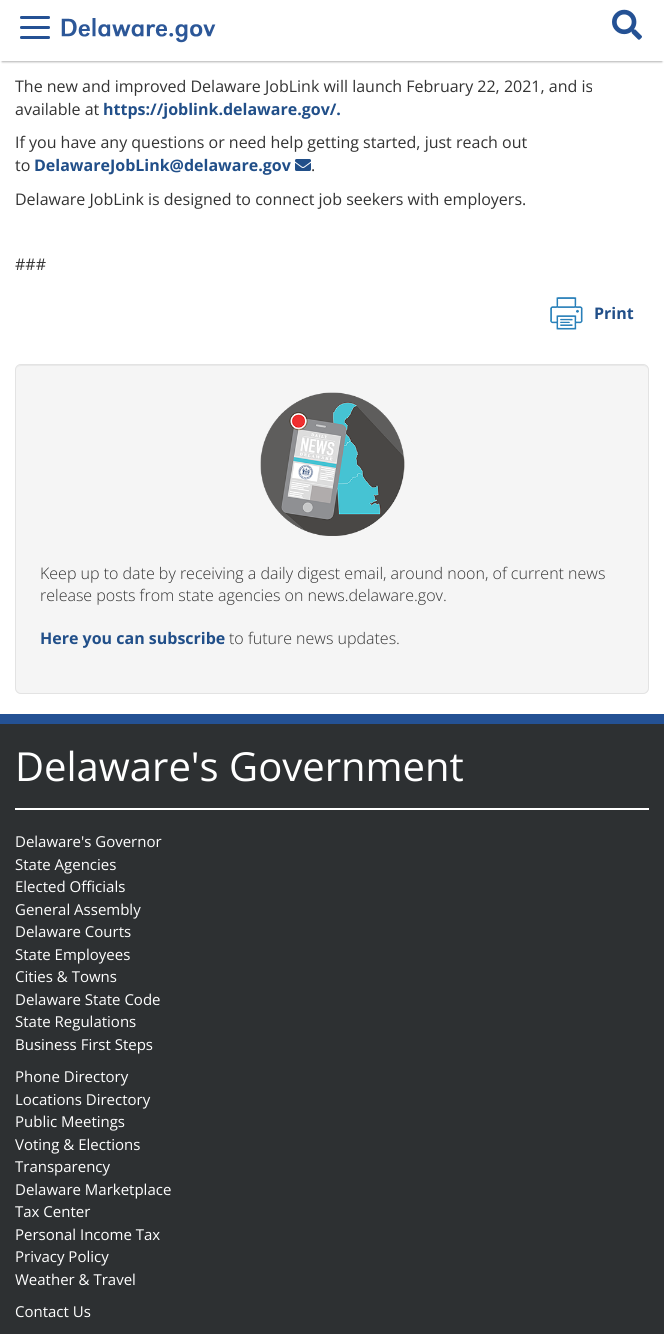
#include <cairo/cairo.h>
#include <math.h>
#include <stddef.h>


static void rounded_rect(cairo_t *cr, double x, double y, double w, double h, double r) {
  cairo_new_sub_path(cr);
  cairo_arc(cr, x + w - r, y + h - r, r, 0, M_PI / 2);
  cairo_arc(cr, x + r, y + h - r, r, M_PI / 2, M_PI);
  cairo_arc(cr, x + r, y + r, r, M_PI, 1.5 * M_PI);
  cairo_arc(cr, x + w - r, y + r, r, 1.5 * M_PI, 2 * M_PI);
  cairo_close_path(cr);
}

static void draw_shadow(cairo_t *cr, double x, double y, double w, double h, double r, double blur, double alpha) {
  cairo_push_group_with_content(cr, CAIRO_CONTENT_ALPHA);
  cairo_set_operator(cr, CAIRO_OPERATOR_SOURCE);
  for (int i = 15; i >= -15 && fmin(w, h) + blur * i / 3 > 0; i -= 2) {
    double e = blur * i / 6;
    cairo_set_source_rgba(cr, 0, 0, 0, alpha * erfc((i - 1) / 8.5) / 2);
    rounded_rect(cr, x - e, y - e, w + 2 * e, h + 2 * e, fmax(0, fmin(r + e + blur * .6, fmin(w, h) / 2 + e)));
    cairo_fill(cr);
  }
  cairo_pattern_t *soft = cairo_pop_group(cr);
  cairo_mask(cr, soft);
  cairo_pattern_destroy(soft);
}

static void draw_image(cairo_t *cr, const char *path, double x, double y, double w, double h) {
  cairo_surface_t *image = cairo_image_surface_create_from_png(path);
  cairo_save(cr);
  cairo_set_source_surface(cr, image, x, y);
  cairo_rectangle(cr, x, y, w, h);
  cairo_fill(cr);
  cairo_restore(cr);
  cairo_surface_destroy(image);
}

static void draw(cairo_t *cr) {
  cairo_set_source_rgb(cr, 1, 1, 1);
  cairo_paint(cr);
  cairo_set_source_rgb(cr, 0, 0, 0);
  draw_shadow(cr, 2, 6, 660, 56, 0, 1, 0.3);
  cairo_set_source_rgb(cr, 1, 1, 1);
  cairo_rectangle(cr, 0, 4, 664, 57);
  cairo_fill(cr);
  cairo_set_source_rgb(cr, 36 / 255.0, 81 / 255.0, 148 / 255.0);
  cairo_new_path(cr);
  cairo_move_to(cr, 21.5, 16);
  cairo_line_to(cr, 35, 16);
  cairo_line_to(cr, 35, 19);
  cairo_line_to(cr, 21.5, 19);
  cairo_curve_to(cr, 20.5, 19, 20, 18.5, 20, 17.5);
  cairo_curve_to(cr, 20, 16.5, 20.5, 16, 21.5, 16);
  cairo_close_path(cr);
  cairo_fill(cr);
  cairo_new_path(cr);
  cairo_move_to(cr, 35, 16);
  cairo_line_to(cr, 48.5, 16);
  cairo_curve_to(cr, 49.5, 16, 50, 16.5, 50, 17.5);
  cairo_curve_to(cr, 50, 18.5, 49.5, 19, 48.5, 19);
  cairo_line_to(cr, 35, 19);
  cairo_close_path(cr);
  cairo_fill(cr);
  cairo_new_path(cr);
  cairo_move_to(cr, 21.5, 26);
  cairo_line_to(cr, 35, 26);
  cairo_line_to(cr, 35, 29);
  cairo_line_to(cr, 21.5, 29);
  cairo_curve_to(cr, 20.5, 29, 20, 28.5, 20, 27.5);
  cairo_curve_to(cr, 20, 26.5, 20.5, 26, 21.5, 26);
  cairo_close_path(cr);
  cairo_fill(cr);
  cairo_new_path(cr);
  cairo_move_to(cr, 35, 26);
  cairo_line_to(cr, 48.5, 26);
  cairo_curve_to(cr, 49.5, 26, 50, 26.5, 50, 27.5);
  cairo_curve_to(cr, 50, 28.5, 49.5, 29, 48.5, 29);
  cairo_line_to(cr, 35, 29);
  cairo_close_path(cr);
  cairo_fill(cr);
  cairo_new_path(cr);
  cairo_move_to(cr, 21.5, 36);
  cairo_line_to(cr, 35, 36);
  cairo_line_to(cr, 35, 39);
  cairo_line_to(cr, 21.5, 39);
  cairo_curve_to(cr, 20.5, 39, 20, 38.5, 20, 37.5);
  cairo_curve_to(cr, 20, 36.5, 20.5, 36, 21.5, 36);
  cairo_close_path(cr);
  cairo_fill(cr);
  cairo_new_path(cr);
  cairo_move_to(cr, 35, 36);
  cairo_line_to(cr, 48.5, 36);
  cairo_curve_to(cr, 49.5, 36, 50, 36.5, 50, 37.5);
  cairo_curve_to(cr, 50, 38.5, 49.5, 39, 48.5, 39);
  cairo_line_to(cr, 35, 39);
  cairo_close_path(cr);
  cairo_fill(cr);
  draw_image(cr, "images/1.png", 61, 18, 155, 25);
  draw_image(cr, "images/2.png", 612, 9, 30, 31);
  draw_image(cr, "images/3.png", 295, 159, 16, 12);
  draw_image(cr, "images/4.png", 550, 297, 33, 33);
  cairo_set_source_rgb(cr, 245 / 255.0, 245 / 255.0, 245 / 255.0);
  rounded_rect(cr, 15, 364, 634, 330, 6);
  cairo_fill(cr);
  cairo_set_source_rgb(cr, 233 / 255.0, 233 / 255.0, 233 / 255.0);
  cairo_new_path(cr);
  cairo_move_to(cr, 21, 366);
  cairo_line_to(cr, 643, 366);
  cairo_curve_to(cr, 646, 366, 648, 368, 648, 371);
  cairo_curve_to(cr, 648, 368, 646, 365, 643, 365);
  cairo_line_to(cr, 21, 365);
  cairo_curve_to(cr, 18, 365, 16, 368, 16, 371);
  cairo_curve_to(cr, 16, 368, 18, 366, 21, 366);
  cairo_close_path(cr);
  cairo_fill(cr);
  rounded_rect(cr, 15.5, 364.5, 633, 329, 5.5);
  cairo_set_source_rgb(cr, 227 / 255.0, 227 / 255.0, 227 / 255.0);
  cairo_set_line_width(cr, 1);
  cairo_stroke(cr);
  draw_image(cr, "images/5.png", 260, 392, 145, 144);
  cairo_set_source_rgb(cr, 45 / 255.0, 48 / 255.0, 50 / 255.0);
  cairo_rectangle(cr, 0, 724, 664, 610);
  cairo_fill(cr);
  cairo_set_source_rgb(cr, 36 / 255.0, 81 / 255.0, 148 / 255.0);
  cairo_rectangle(cr, 0, 714, 664, 10);
  cairo_fill(cr);
  cairo_set_source_rgb(cr, 1, 1, 1);
  cairo_rectangle(cr, 15, 808, 634, 2);
  cairo_fill(cr);
  cairo_select_font_face(cr, "Open Sans", CAIRO_FONT_SLANT_NORMAL, CAIRO_FONT_WEIGHT_NORMAL);
  cairo_set_font_size(cr, 16);
  cairo_set_source_rgb(cr, 51 / 255.0, 51 / 255.0, 51 / 255.0);
  cairo_move_to(cr, 15, 92);
  cairo_show_text(cr, "The new and improved Delaware JobLink will launch February 22, 2021, and is");
  cairo_move_to(cr, 15, 115);
  cairo_show_text(cr, "available at");
  cairo_select_font_face(cr, "Open Sans", CAIRO_FONT_SLANT_NORMAL, CAIRO_FONT_WEIGHT_BOLD);
  cairo_set_source_rgb(cr, 33 / 255.0, 79 / 255.0, 137 / 255.0);
  cairo_move_to(cr, 103, 115);
  cairo_show_text(cr, "https://joblink.delaware.gov/.");
  cairo_select_font_face(cr, "Open Sans", CAIRO_FONT_SLANT_NORMAL, CAIRO_FONT_WEIGHT_NORMAL);
  cairo_set_source_rgb(cr, 51 / 255.0, 51 / 255.0, 51 / 255.0);
  cairo_move_to(cr, 15, 148);
  cairo_show_text(cr, "If you have any questions or need help getting started, just reach out");
  cairo_move_to(cr, 15, 171);
  cairo_show_text(cr, "to");
  cairo_select_font_face(cr, "Open Sans", CAIRO_FONT_SLANT_NORMAL, CAIRO_FONT_WEIGHT_BOLD);
  cairo_set_source_rgb(cr, 33 / 255.0, 79 / 255.0, 137 / 255.0);
  cairo_move_to(cr, 34, 171);
  cairo_show_text(cr, "DelawareJobLink@delaware.gov");
  cairo_select_font_face(cr, "Open Sans", CAIRO_FONT_SLANT_NORMAL, CAIRO_FONT_WEIGHT_NORMAL);
  cairo_set_source_rgb(cr, 51 / 255.0, 51 / 255.0, 51 / 255.0);
  cairo_move_to(cr, 311, 171);
  cairo_show_text(cr, ".");
  cairo_move_to(cr, 15, 205);
  cairo_show_text(cr, "Delaware JobLink is designed to connect job seekers with employers.");
  cairo_move_to(cr, 15, 270);
  cairo_show_text(cr, "###");
  cairo_select_font_face(cr, "Open Sans", CAIRO_FONT_SLANT_NORMAL, CAIRO_FONT_WEIGHT_BOLD);
  cairo_set_source_rgb(cr, 33 / 255.0, 79 / 255.0, 137 / 255.0);
  cairo_move_to(cr, 594, 319);
  cairo_show_text(cr, "Print");
  cairo_select_font_face(cr, "Open Sans Light", CAIRO_FONT_SLANT_NORMAL, CAIRO_FONT_WEIGHT_NORMAL);
  cairo_set_source_rgb(cr, 51 / 255.0, 51 / 255.0, 51 / 255.0);
  cairo_move_to(cr, 40, 579);
  cairo_show_text(cr, "Keep up to date by receiving a daily digest email, around noon, of current news");
  cairo_move_to(cr, 40, 601);
  cairo_show_text(cr, "release posts from state agencies on news.delaware.gov.");
  cairo_select_font_face(cr, "Open Sans", CAIRO_FONT_SLANT_NORMAL, CAIRO_FONT_WEIGHT_BOLD);
  cairo_set_source_rgb(cr, 33 / 255.0, 79 / 255.0, 137 / 255.0);
  cairo_move_to(cr, 40, 644);
  cairo_show_text(cr, "Here you can subscribe");
  cairo_select_font_face(cr, "Open Sans Light", CAIRO_FONT_SLANT_NORMAL, CAIRO_FONT_WEIGHT_NORMAL);
  cairo_set_source_rgb(cr, 51 / 255.0, 51 / 255.0, 51 / 255.0);
  cairo_move_to(cr, 229, 644);
  cairo_show_text(cr, "to future news updates.");
  cairo_select_font_face(cr, "Open Sans", CAIRO_FONT_SLANT_NORMAL, CAIRO_FONT_WEIGHT_NORMAL);
  cairo_set_font_size(cr, 40);
  cairo_set_source_rgb(cr, 1, 1, 1);
  cairo_move_to(cr, 15, 781);
  cairo_show_text(cr, "Delaware's Government");
  cairo_set_font_size(cr, 15);
  cairo_move_to(cr, 15, 847);
  cairo_show_text(cr, "Delaware's Governor");
  cairo_move_to(cr, 15, 870);
  cairo_show_text(cr, "State Agencies");
  cairo_move_to(cr, 15, 892);
  cairo_show_text(cr, "Elected Officials");
  cairo_move_to(cr, 15, 915);
  cairo_show_text(cr, "General Assembly");
  cairo_move_to(cr, 15, 937);
  cairo_show_text(cr, "Delaware Courts");
  cairo_move_to(cr, 15, 960);
  cairo_show_text(cr, "State Employees");
  cairo_move_to(cr, 15, 982);
  cairo_show_text(cr, "Cities & Towns");
  cairo_move_to(cr, 15, 1005);
  cairo_show_text(cr, "Delaware State Code");
  cairo_move_to(cr, 15, 1027);
  cairo_show_text(cr, "State Regulations");
  cairo_move_to(cr, 15, 1050);
  cairo_show_text(cr, "Business First Steps");
  cairo_move_to(cr, 15, 1082);
  cairo_show_text(cr, "Phone Directory");
  cairo_move_to(cr, 15, 1105);
  cairo_show_text(cr, "Locations Directory");
  cairo_move_to(cr, 15, 1127);
  cairo_show_text(cr, "Public Meetings");
  cairo_move_to(cr, 15, 1150);
  cairo_show_text(cr, "Voting & Elections");
  cairo_move_to(cr, 15, 1172);
  cairo_show_text(cr, "Transparency");
  cairo_move_to(cr, 15, 1195);
  cairo_show_text(cr, "Delaware Marketplace");
  cairo_move_to(cr, 15, 1217);
  cairo_show_text(cr, "Tax Center");
  cairo_move_to(cr, 15, 1240);
  cairo_show_text(cr, "Personal Income Tax");
  cairo_move_to(cr, 15, 1262);
  cairo_show_text(cr, "Privacy Policy");
  cairo_move_to(cr, 15, 1285);
  cairo_show_text(cr, "Weather & Travel");
  cairo_move_to(cr, 15, 1317);
  cairo_show_text(cr, "Contact Us");
}

int main(void) {
  cairo_surface_t *surface = cairo_image_surface_create(CAIRO_FORMAT_RGB24, 664, 1334);
  cairo_t *cr = cairo_create(surface);
  cairo_font_options_t *options = cairo_font_options_create();
  cairo_font_options_set_hint_metrics(options, CAIRO_HINT_METRICS_OFF);
  cairo_font_options_set_hint_style(options, CAIRO_HINT_STYLE_NONE);
  cairo_set_font_options(cr, options);
  cairo_set_miter_limit(cr, 4);
  draw(cr);
  cairo_surface_write_to_png(surface, "out.png");
  cairo_font_options_destroy(options);
  cairo_destroy(cr);
  cairo_surface_destroy(surface);
  return 0;
}
